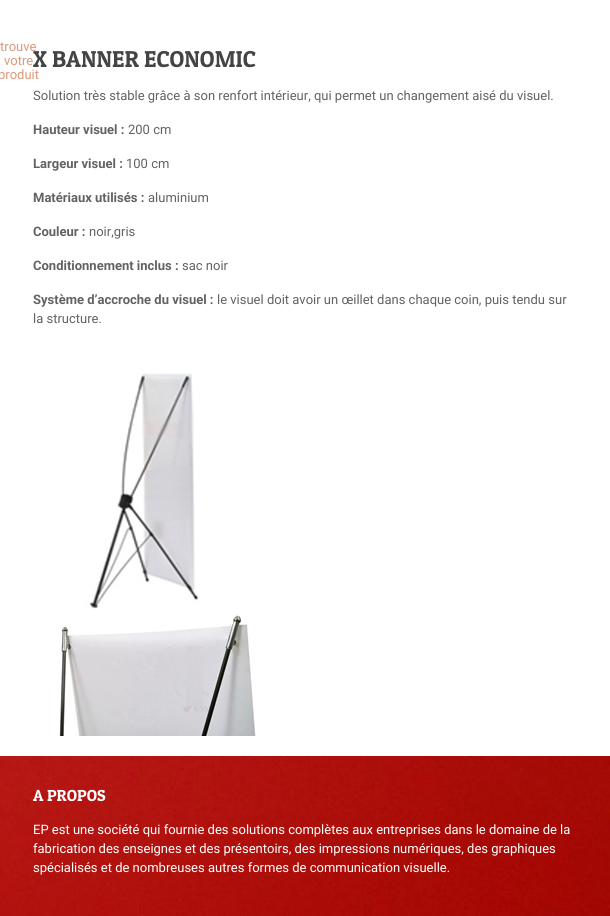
#include <cairo/cairo.h>
#include <math.h>
#include <stddef.h>


static void draw_image(cairo_t *cr, const char *path, double x, double y, double w, double h) {
  cairo_surface_t *image = cairo_image_surface_create_from_png(path);
  cairo_save(cr);
  cairo_set_source_surface(cr, image, x, y);
  cairo_rectangle(cr, x, y, w, h);
  cairo_fill(cr);
  cairo_restore(cr);
  cairo_surface_destroy(image);
}

static void draw(cairo_t *cr) {
  cairo_set_source_rgb(cr, 1, 1, 1);
  cairo_paint(cr);
  draw_image(cr, "images/1.png", 59, 373, 197, 363);
  draw_image(cr, "images/2.png", 0, 756, 610, 160);
  cairo_select_font_face(cr, "Roboto", CAIRO_FONT_SLANT_NORMAL, CAIRO_FONT_WEIGHT_NORMAL);
  cairo_set_font_size(cr, 13);
  cairo_set_source_rgb(cr, 218 / 255.0, 152 / 255.0, 123 / 255.0);
  cairo_move_to(cr, 0, 51);
  cairo_show_text(cr, "trouve");
  cairo_move_to(cr, 4, 65);
  cairo_show_text(cr, "votre");
  cairo_move_to(cr, -2, 79);
  cairo_show_text(cr, "produit");
  cairo_select_font_face(cr, "Patua One", CAIRO_FONT_SLANT_NORMAL, CAIRO_FONT_WEIGHT_NORMAL);
  cairo_set_font_size(cr, 23);
  cairo_set_source_rgb(cr, 68 / 255.0, 68 / 255.0, 68 / 255.0);
  cairo_move_to(cr, 33, 67);
  cairo_show_text(cr, "X BANNER ECONOMIC");
  cairo_select_font_face(cr, "Roboto", CAIRO_FONT_SLANT_NORMAL, CAIRO_FONT_WEIGHT_NORMAL);
  cairo_set_font_size(cr, 13);
  cairo_set_source_rgb(cr, 98 / 255.0, 98 / 255.0, 98 / 255.0);
  cairo_move_to(cr, 33, 100);
  cairo_show_text(cr, "Solution très stable grâce à son renfort intérieur, qui permet un changement aisé du visuel.");
  cairo_select_font_face(cr, "Roboto", CAIRO_FONT_SLANT_NORMAL, CAIRO_FONT_WEIGHT_BOLD);
  cairo_move_to(cr, 33, 134);
  cairo_show_text(cr, "Hauteur visuel :");
  cairo_select_font_face(cr, "Roboto", CAIRO_FONT_SLANT_NORMAL, CAIRO_FONT_WEIGHT_NORMAL);
  cairo_move_to(cr, 128, 134);
  cairo_show_text(cr, "200 cm");
  cairo_select_font_face(cr, "Roboto", CAIRO_FONT_SLANT_NORMAL, CAIRO_FONT_WEIGHT_BOLD);
  cairo_move_to(cr, 33, 168);
  cairo_show_text(cr, "Largeur visuel :");
  cairo_select_font_face(cr, "Roboto", CAIRO_FONT_SLANT_NORMAL, CAIRO_FONT_WEIGHT_NORMAL);
  cairo_move_to(cr, 126, 168);
  cairo_show_text(cr, "100 cm");
  cairo_select_font_face(cr, "Roboto", CAIRO_FONT_SLANT_NORMAL, CAIRO_FONT_WEIGHT_BOLD);
  cairo_move_to(cr, 33, 202);
  cairo_show_text(cr, "Matériaux utilisés :");
  cairo_select_font_face(cr, "Roboto", CAIRO_FONT_SLANT_NORMAL, CAIRO_FONT_WEIGHT_NORMAL);
  cairo_move_to(cr, 148, 202);
  cairo_show_text(cr, "aluminium");
  cairo_select_font_face(cr, "Roboto", CAIRO_FONT_SLANT_NORMAL, CAIRO_FONT_WEIGHT_BOLD);
  cairo_move_to(cr, 33, 236);
  cairo_show_text(cr, "Couleur :");
  cairo_select_font_face(cr, "Roboto", CAIRO_FONT_SLANT_NORMAL, CAIRO_FONT_WEIGHT_NORMAL);
  cairo_move_to(cr, 89, 236);
  cairo_show_text(cr, "noir,gris");
  cairo_select_font_face(cr, "Roboto", CAIRO_FONT_SLANT_NORMAL, CAIRO_FONT_WEIGHT_BOLD);
  cairo_move_to(cr, 33, 270);
  cairo_show_text(cr, "Conditionnement inclus :");
  cairo_select_font_face(cr, "Roboto", CAIRO_FONT_SLANT_NORMAL, CAIRO_FONT_WEIGHT_NORMAL);
  cairo_move_to(cr, 182, 270);
  cairo_show_text(cr, "sac noir");
  cairo_select_font_face(cr, "Roboto", CAIRO_FONT_SLANT_NORMAL, CAIRO_FONT_WEIGHT_BOLD);
  cairo_move_to(cr, 33, 304);
  cairo_show_text(cr, "Système d’accroche du visuel :");
  cairo_select_font_face(cr, "Roboto", CAIRO_FONT_SLANT_NORMAL, CAIRO_FONT_WEIGHT_NORMAL);
  cairo_move_to(cr, 217, 304);
  cairo_show_text(cr, "le visuel doit avoir un œillet dans chaque coin, puis tendu sur");
  cairo_move_to(cr, 33, 323);
  cairo_show_text(cr, "la structure.");
  cairo_select_font_face(cr, "Patua One", CAIRO_FONT_SLANT_NORMAL, CAIRO_FONT_WEIGHT_NORMAL);
  cairo_set_font_size(cr, 16);
  cairo_set_source_rgb(cr, 1, 1, 1);
  cairo_move_to(cr, 33, 801);
  cairo_show_text(cr, "A PROPOS");
  cairo_select_font_face(cr, "Roboto", CAIRO_FONT_SLANT_NORMAL, CAIRO_FONT_WEIGHT_NORMAL);
  cairo_set_font_size(cr, 13);
  cairo_move_to(cr, 33, 834);
  cairo_show_text(cr, "EP est une société qui fournie des solutions complètes aux entreprises dans le domaine de la");
  cairo_move_to(cr, 33, 853);
  cairo_show_text(cr, "fabrication des enseignes et des présentoirs, des impressions numériques, des graphiques");
  cairo_move_to(cr, 33, 872);
  cairo_show_text(cr, "spécialisés et de nombreuses autres formes de communication visuelle.");
}

int main(void) {
  cairo_surface_t *surface = cairo_image_surface_create(CAIRO_FORMAT_RGB24, 610, 916);
  cairo_t *cr = cairo_create(surface);
  cairo_font_options_t *options = cairo_font_options_create();
  cairo_font_options_set_hint_metrics(options, CAIRO_HINT_METRICS_OFF);
  cairo_font_options_set_hint_style(options, CAIRO_HINT_STYLE_NONE);
  cairo_set_font_options(cr, options);
  cairo_set_miter_limit(cr, 4);
  draw(cr);
  cairo_surface_write_to_png(surface, "out.png");
  cairo_font_options_destroy(options);
  cairo_destroy(cr);
  cairo_surface_destroy(surface);
  return 0;
}
